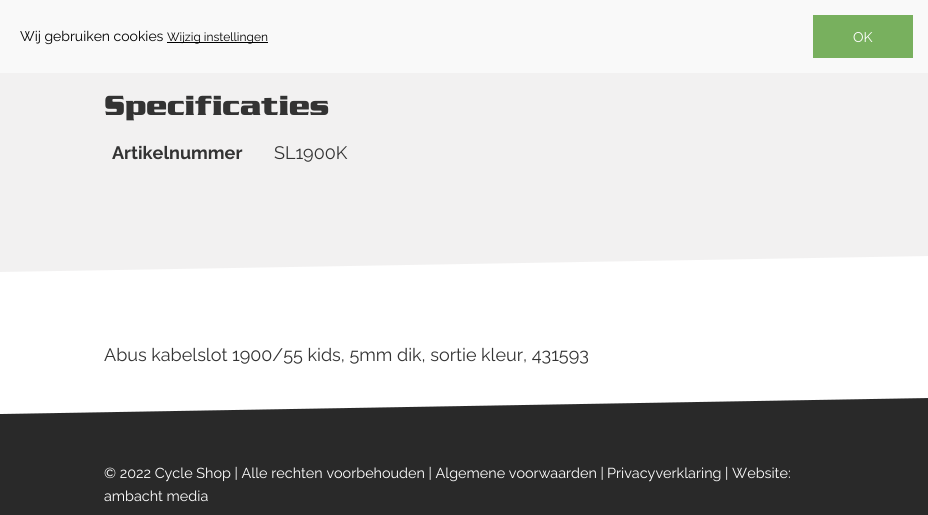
#include <cairo/cairo.h>
#include <math.h>
#include <stddef.h>


static void draw(cairo_t *cr) {
  cairo_set_source_rgb(cr, 1, 1, 1);
  cairo_paint(cr);
  cairo_set_source_rgb(cr, 242 / 255.0, 241 / 255.0, 241 / 255.0);
  cairo_rectangle(cr, 0, 73, 928, 124);
  cairo_fill(cr);
  cairo_new_path(cr);
  cairo_move_to(cr, 0, 7);
  cairo_line_to(cr, 928, -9);
  cairo_line_to(cr, 928, 66);
  cairo_line_to(cr, 0, 82);
  cairo_close_path(cr);
  cairo_fill(cr);
  cairo_set_source_rgb(cr, 249 / 255.0, 249 / 255.0, 249 / 255.0);
  cairo_rectangle(cr, 0, 0, 928, 73);
  cairo_fill(cr);
  cairo_set_source_rgb(cr, 0, 0, 0);
  cairo_rectangle(cr, 167, 42, 101, 1);
  cairo_fill(cr);
  cairo_set_source_rgb(cr, 120 / 255.0, 176 / 255.0, 94 / 255.0);
  cairo_rectangle(cr, 813, 15, 100, 43);
  cairo_fill(cr);
  cairo_set_source_rgb(cr, 242 / 255.0, 241 / 255.0, 241 / 255.0);
  cairo_new_path(cr);
  cairo_move_to(cr, 0, 197);
  cairo_line_to(cr, 928, 181);
  cairo_line_to(cr, 928, 256);
  cairo_line_to(cr, 0, 272);
  cairo_close_path(cr);
  cairo_fill(cr);
  cairo_set_source_rgb(cr, 41 / 255.0, 41 / 255.0, 41 / 255.0);
  cairo_rectangle(cr, 0, 473, 928, 42);
  cairo_fill(cr);
  cairo_new_path(cr);
  cairo_move_to(cr, 0, 414);
  cairo_line_to(cr, 928, 398);
  cairo_line_to(cr, 928, 473);
  cairo_line_to(cr, 0, 489);
  cairo_close_path(cr);
  cairo_fill(cr);
  cairo_select_font_face(cr, "Raleway", CAIRO_FONT_SLANT_NORMAL, CAIRO_FONT_WEIGHT_NORMAL);
  cairo_set_font_size(cr, 14);
  cairo_set_source_rgb(cr, 0, 0, 0);
  cairo_move_to(cr, 20, 41);
  cairo_show_text(cr, "Wij gebruiken cookies");
  cairo_set_font_size(cr, 12);
  cairo_move_to(cr, 167, 41);
  cairo_show_text(cr, "Wijzig instellingen");
  cairo_set_font_size(cr, 14);
  cairo_set_source_rgb(cr, 1, 1, 1);
  cairo_move_to(cr, 853, 42);
  cairo_show_text(cr, "OK");
  cairo_select_font_face(cr, "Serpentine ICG", CAIRO_FONT_SLANT_NORMAL, CAIRO_FONT_WEIGHT_BOLD);
  cairo_set_font_size(cr, 30);
  cairo_set_source_rgb(cr, 51 / 255.0, 51 / 255.0, 51 / 255.0);
  cairo_move_to(cr, 104, 115);
  cairo_show_text(cr, "Specificaties");
  cairo_select_font_face(cr, "Raleway", CAIRO_FONT_SLANT_NORMAL, CAIRO_FONT_WEIGHT_BOLD);
  cairo_set_font_size(cr, 18);
  cairo_move_to(cr, 112, 159);
  cairo_show_text(cr, "Artikelnummer");
  cairo_select_font_face(cr, "Raleway", CAIRO_FONT_SLANT_NORMAL, CAIRO_FONT_WEIGHT_NORMAL);
  cairo_move_to(cr, 274, 159);
  cairo_show_text(cr, "SL1900K");
  cairo_move_to(cr, 104, 361);
  cairo_show_text(cr, "Abus kabelslot 1900/55 kids, 5mm dik, sortie kleur, 431593");
  cairo_set_font_size(cr, 14.4);
  cairo_set_source_rgb(cr, 1, 1, 1);
  cairo_move_to(cr, 104, 478);
  cairo_show_text(cr, "© 2022 Cycle Shop | Alle rechten voorbehouden | Algemene voorwaarden |");
  cairo_move_to(cr, 607, 478);
  cairo_show_text(cr, "Privacyverklaring | Website:");
  cairo_move_to(cr, 104, 501);
  cairo_show_text(cr, "ambacht media");
}

int main(void) {
  cairo_surface_t *surface = cairo_image_surface_create(CAIRO_FORMAT_RGB24, 928, 515);
  cairo_t *cr = cairo_create(surface);
  cairo_font_options_t *options = cairo_font_options_create();
  cairo_font_options_set_hint_metrics(options, CAIRO_HINT_METRICS_OFF);
  cairo_font_options_set_hint_style(options, CAIRO_HINT_STYLE_NONE);
  cairo_set_font_options(cr, options);
  cairo_set_miter_limit(cr, 4);
  draw(cr);
  cairo_surface_write_to_png(surface, "out.png");
  cairo_font_options_destroy(options);
  cairo_destroy(cr);
  cairo_surface_destroy(surface);
  return 0;
}
